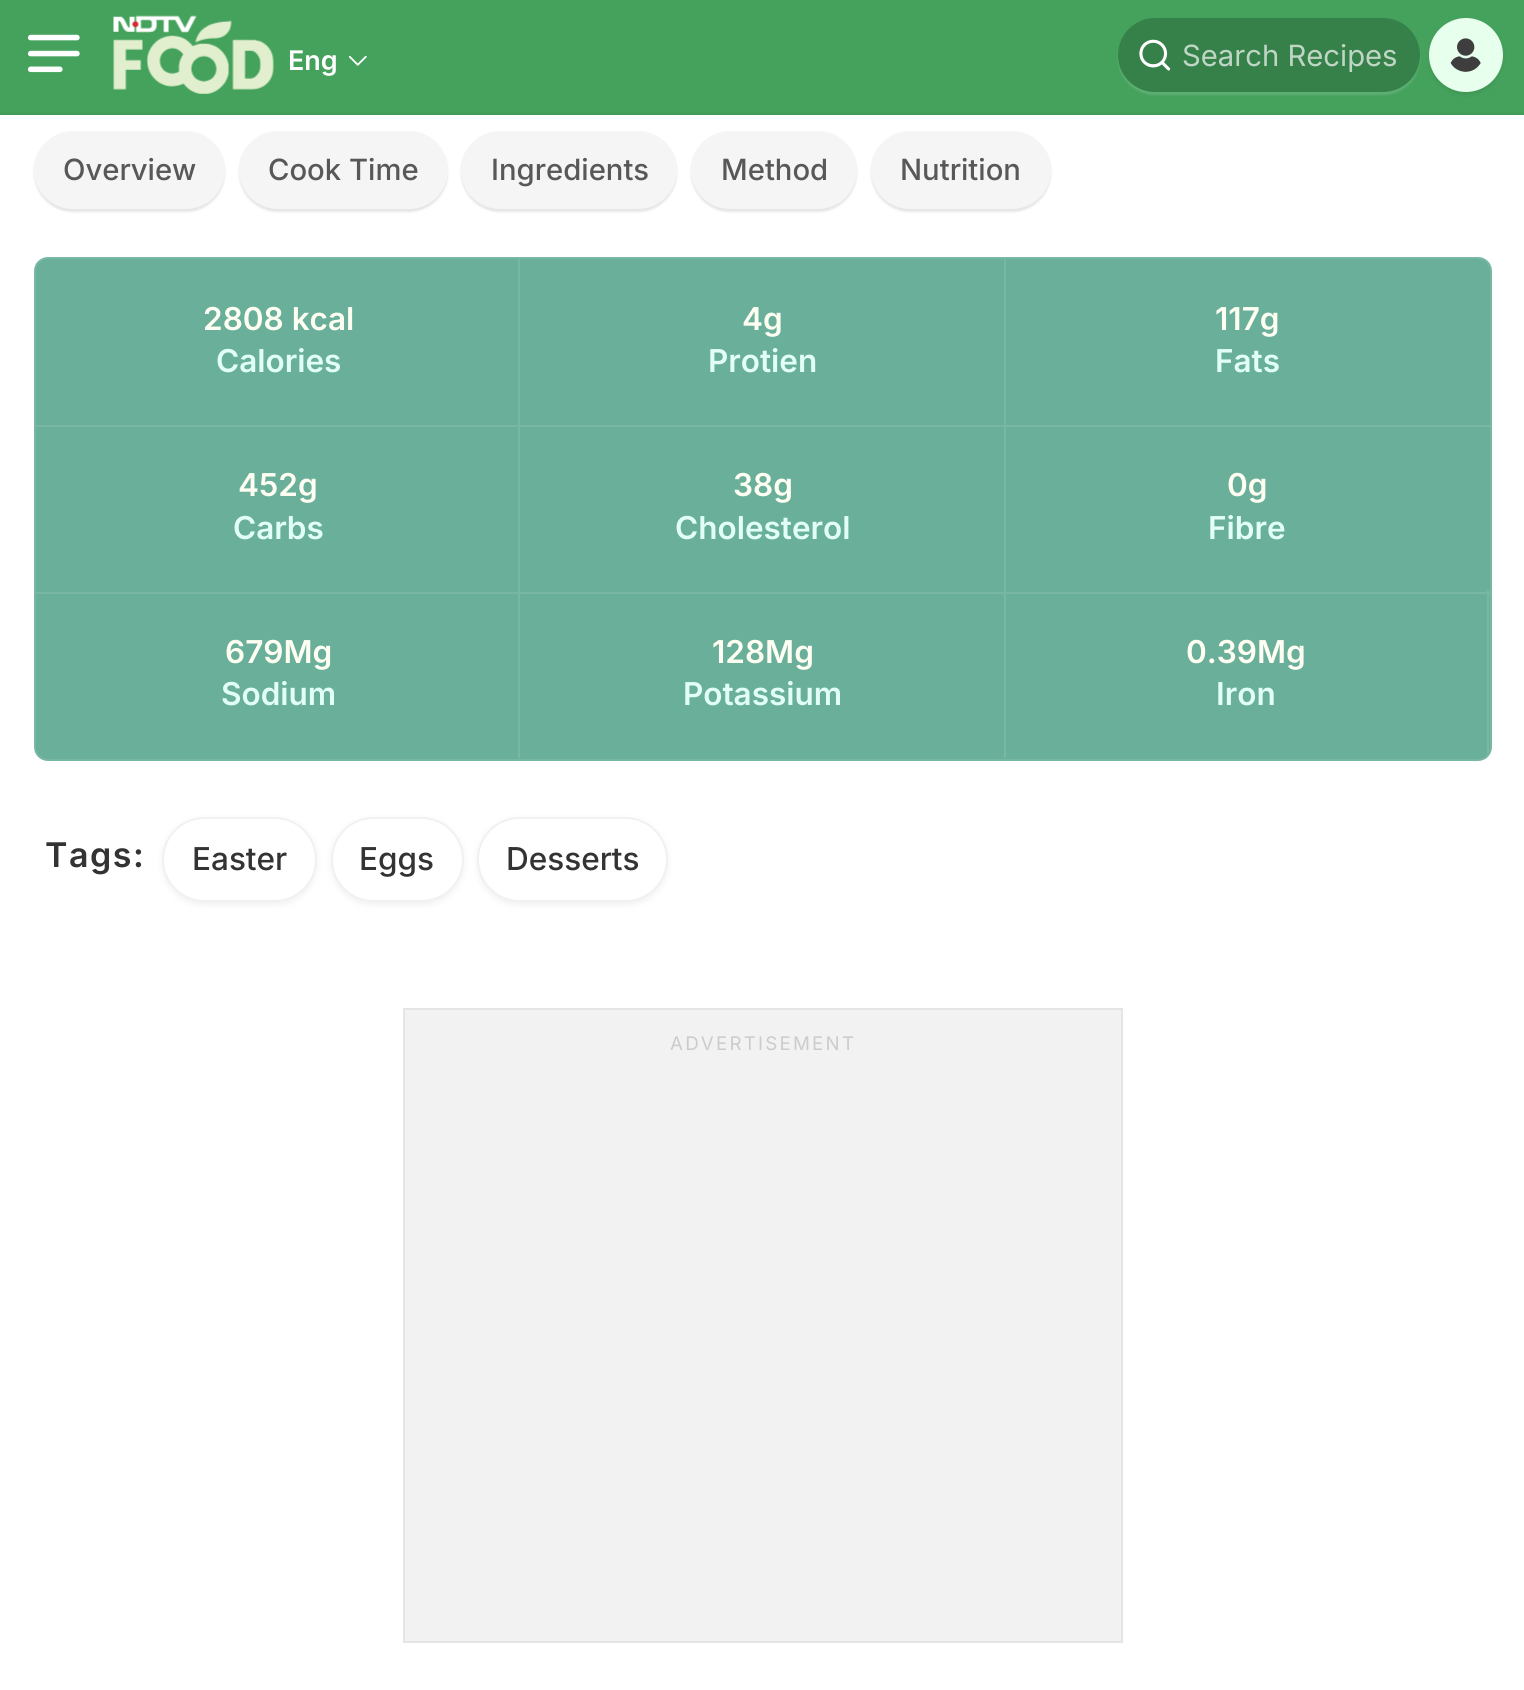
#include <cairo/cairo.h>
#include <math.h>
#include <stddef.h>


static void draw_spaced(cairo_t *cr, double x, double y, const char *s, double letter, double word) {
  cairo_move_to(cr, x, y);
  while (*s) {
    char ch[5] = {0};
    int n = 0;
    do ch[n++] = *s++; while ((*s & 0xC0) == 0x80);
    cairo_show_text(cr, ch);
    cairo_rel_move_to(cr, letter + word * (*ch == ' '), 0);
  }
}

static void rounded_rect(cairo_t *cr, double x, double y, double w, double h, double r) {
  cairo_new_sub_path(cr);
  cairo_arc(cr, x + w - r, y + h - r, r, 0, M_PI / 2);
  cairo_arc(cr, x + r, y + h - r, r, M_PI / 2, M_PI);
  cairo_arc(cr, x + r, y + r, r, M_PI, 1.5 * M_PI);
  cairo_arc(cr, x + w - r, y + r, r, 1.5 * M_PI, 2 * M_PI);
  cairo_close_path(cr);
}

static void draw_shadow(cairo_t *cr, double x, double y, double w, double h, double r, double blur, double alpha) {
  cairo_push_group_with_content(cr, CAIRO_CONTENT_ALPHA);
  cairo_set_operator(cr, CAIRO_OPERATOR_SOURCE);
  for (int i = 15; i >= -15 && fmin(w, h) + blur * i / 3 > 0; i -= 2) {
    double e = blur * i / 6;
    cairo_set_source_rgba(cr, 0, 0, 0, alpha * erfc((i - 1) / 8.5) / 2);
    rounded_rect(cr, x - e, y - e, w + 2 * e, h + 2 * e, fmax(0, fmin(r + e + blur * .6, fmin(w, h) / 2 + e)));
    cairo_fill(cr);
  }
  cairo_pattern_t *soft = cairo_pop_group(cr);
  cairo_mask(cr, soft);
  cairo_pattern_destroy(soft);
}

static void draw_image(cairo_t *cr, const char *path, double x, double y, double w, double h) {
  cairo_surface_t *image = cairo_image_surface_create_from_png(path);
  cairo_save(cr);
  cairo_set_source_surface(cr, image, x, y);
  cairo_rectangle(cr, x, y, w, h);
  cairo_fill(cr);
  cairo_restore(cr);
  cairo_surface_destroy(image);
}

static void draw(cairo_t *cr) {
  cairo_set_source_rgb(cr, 1, 1, 1);
  cairo_paint(cr);
  cairo_set_source_rgb(cr, 68 / 255.0, 162 / 255.0, 92 / 255.0);
  cairo_rectangle(cr, 0, 0, 1524, 113);
  cairo_fill(cr);
  cairo_set_source_rgb(cr, 67 / 255.0, 154 / 255.0, 89 / 255.0);
  cairo_rectangle(cr, 0, 113, 1524, 2);
  cairo_fill(cr);
  draw_image(cr, "images/1.png", 27, 34, 53, 39);
  draw_image(cr, "images/2.png", 113, 15, 161, 79);
  draw_image(cr, "images/3.png", 349, 55, 18, 11);
  cairo_save(cr);
  cairo_set_fill_rule(cr, CAIRO_FILL_RULE_EVEN_ODD);
  cairo_new_path(cr);
  cairo_move_to(cr, 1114, 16);
  cairo_line_to(cr, 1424, 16);
  cairo_line_to(cr, 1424, 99);
  cairo_line_to(cr, 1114, 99);
  cairo_close_path(cr);
  cairo_move_to(cr, 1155, 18);
  cairo_line_to(cr, 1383, 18);
  cairo_curve_to(cr, 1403.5, 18, 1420, 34.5, 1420, 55);
  cairo_curve_to(cr, 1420, 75.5, 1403.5, 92, 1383, 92);
  cairo_line_to(cr, 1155, 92);
  cairo_curve_to(cr, 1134.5, 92, 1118, 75.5, 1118, 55);
  cairo_curve_to(cr, 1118, 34.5, 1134.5, 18, 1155, 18);
  cairo_close_path(cr);
  cairo_clip(cr);
  cairo_set_source_rgb(cr, 1, 1, 1);
  draw_shadow(cr, 1118, 20, 302, 75, 37.5, 1, 0.14);
  cairo_restore(cr);
  cairo_set_source_rgba(cr, 0, 0, 0, 0.21);
  rounded_rect(cr, 1118, 18, 302, 74, 37);
  cairo_fill(cr);
  draw_image(cr, "images/4.png", 1139, 39, 32, 32);
  cairo_set_source_rgb(cr, 0, 0, 0);
  draw_shadow(cr, 1429, 20, 74, 75, 37, 2, 0.07);
  cairo_set_source_rgb(cr, 231 / 255.0, 1, 237 / 255.0);
  cairo_arc(cr, 1466, 55, 34.5, 0, 2 * M_PI);
  cairo_fill_preserve(cr);
  cairo_set_source_rgb(cr, 232 / 255.0, 1, 237 / 255.0);
  cairo_set_line_width(cr, 5);
  cairo_stroke(cr);
  draw_image(cr, "images/5.png", 1450, 38, 31, 34);
  cairo_set_source_rgb(cr, 0, 0, 0);
  draw_shadow(cr, 34, 133, 191, 79, 39.5, 1, 0.1);
  cairo_set_source_rgb(cr, 245 / 255.0, 245 / 255.0, 245 / 255.0);
  rounded_rect(cr, 36.5, 133.5, 186, 73, 36.5);
  cairo_fill_preserve(cr);
  cairo_stroke(cr);
  cairo_set_source_rgb(cr, 0, 0, 0);
  draw_shadow(cr, 239, 133, 209, 79, 39.5, 1, 0.1);
  cairo_set_source_rgb(cr, 245 / 255.0, 245 / 255.0, 245 / 255.0);
  rounded_rect(cr, 241.5, 133.5, 204, 73, 36.5);
  cairo_fill_preserve(cr);
  cairo_stroke(cr);
  cairo_set_source_rgb(cr, 0, 0, 0);
  draw_shadow(cr, 461, 133, 216, 79, 39.5, 1, 0.1);
  cairo_set_source_rgb(cr, 245 / 255.0, 245 / 255.0, 245 / 255.0);
  rounded_rect(cr, 463.5, 133.5, 211, 73, 36.5);
  cairo_fill_preserve(cr);
  cairo_stroke(cr);
  cairo_set_source_rgb(cr, 0, 0, 0);
  draw_shadow(cr, 691, 133, 166, 79, 39.5, 1, 0.1);
  cairo_set_source_rgb(cr, 245 / 255.0, 245 / 255.0, 245 / 255.0);
  rounded_rect(cr, 693.5, 133.5, 161, 73, 36.5);
  cairo_fill_preserve(cr);
  cairo_stroke(cr);
  cairo_set_source_rgb(cr, 0, 0, 0);
  draw_shadow(cr, 871, 133, 180, 79, 39.5, 1, 0.1);
  cairo_set_source_rgb(cr, 245 / 255.0, 245 / 255.0, 245 / 255.0);
  rounded_rect(cr, 873.5, 133.5, 175, 73, 36.5);
  cairo_fill_preserve(cr);
  cairo_stroke(cr);
  cairo_set_source_rgb(cr, 105 / 255.0, 175 / 255.0, 154 / 255.0);
  rounded_rect(cr, 35, 258, 1456, 502, 13);
  cairo_fill_preserve(cr);
  cairo_set_source_rgb(cr, 119 / 255.0, 183 / 255.0, 164 / 255.0);
  cairo_set_line_width(cr, 2);
  cairo_stroke(cr);
  cairo_rectangle(cr, 36, 425, 1454, 2);
  cairo_fill(cr);
  cairo_rectangle(cr, 518, 259, 2, 169);
  cairo_fill(cr);
  cairo_rectangle(cr, 1004, 259, 2, 169);
  cairo_fill(cr);
  cairo_rectangle(cr, 36, 592, 1454, 2);
  cairo_fill(cr);
  cairo_rectangle(cr, 518, 423, 2, 335);
  cairo_fill(cr);
  cairo_rectangle(cr, 1004, 423, 2, 335);
  cairo_fill(cr);
  cairo_save(cr);
  rounded_rect(cr, 36, 259, 1454, 499, 11);
  cairo_clip(cr);
  cairo_rectangle(cr, 1487, 590, 2, 168);
  cairo_fill(cr);
  cairo_restore(cr);
  cairo_set_source_rgb(cr, 0, 0, 0);
  draw_shadow(cr, 162, 819, 155, 86, 43, 3.5, 0.06);
  cairo_set_source_rgb(cr, 1, 1, 1);
  rounded_rect(cr, 163, 818, 153, 83, 41.5);
  cairo_fill_preserve(cr);
  cairo_set_source_rgb(cr, 241 / 255.0, 241 / 255.0, 241 / 255.0);
  cairo_stroke(cr);
  cairo_set_source_rgb(cr, 0, 0, 0);
  draw_shadow(cr, 331, 819, 133, 86, 43, 3.5, 0.06);
  cairo_set_source_rgb(cr, 1, 1, 1);
  rounded_rect(cr, 331, 817, 133, 85, 42.5);
  cairo_fill(cr);
  rounded_rect(cr, 332, 818, 131, 83, 41.5);
  cairo_set_source_rgba(cr, 51 / 255.0, 51 / 255.0, 51 / 255.0, 0.07);
  cairo_stroke(cr);
  cairo_set_source_rgb(cr, 0, 0, 0);
  draw_shadow(cr, 477, 819, 191, 86, 43, 3.5, 0.06);
  cairo_set_source_rgb(cr, 1, 1, 1);
  rounded_rect(cr, 478, 818, 189, 83, 41.5);
  cairo_fill_preserve(cr);
  cairo_set_source_rgb(cr, 241 / 255.0, 241 / 255.0, 241 / 255.0);
  cairo_stroke(cr);
  cairo_set_source_rgb(cr, 242 / 255.0, 242 / 255.0, 242 / 255.0);
  cairo_rectangle(cr, 404, 1009, 718, 633);
  cairo_fill_preserve(cr);
  cairo_set_source_rgb(cr, 229 / 255.0, 229 / 255.0, 229 / 255.0);
  cairo_stroke(cr);
  cairo_select_font_face(cr, "Inter SemiBold", CAIRO_FONT_SLANT_NORMAL, CAIRO_FONT_WEIGHT_NORMAL);
  cairo_set_font_size(cr, 27);
  cairo_set_source_rgb(cr, 1, 1, 1);
  cairo_move_to(cr, 288, 70);
  cairo_show_text(cr, "Eng");
  cairo_select_font_face(cr, "Inter", CAIRO_FONT_SLANT_NORMAL, CAIRO_FONT_WEIGHT_NORMAL);
  cairo_set_font_size(cr, 29.25);
  cairo_set_source_rgb(cr, 191 / 255.0, 214 / 255.0, 197 / 255.0);
  cairo_move_to(cr, 1182, 66);
  cairo_show_text(cr, "Search Recipes");
  cairo_select_font_face(cr, "Inter Medium", CAIRO_FONT_SLANT_NORMAL, CAIRO_FONT_WEIGHT_NORMAL);
  cairo_set_source_rgb(cr, 88 / 255.0, 88 / 255.0, 88 / 255.0);
  cairo_move_to(cr, 63, 180);
  cairo_show_text(cr, "Overview");
  cairo_move_to(cr, 268, 180);
  cairo_show_text(cr, "Cook Time");
  cairo_move_to(cr, 491, 180);
  cairo_show_text(cr, "Ingredients");
  cairo_move_to(cr, 721, 180);
  cairo_show_text(cr, "Method");
  cairo_move_to(cr, 900, 180);
  cairo_show_text(cr, "Nutrition");
  cairo_select_font_face(cr, "Inter SemiBold", CAIRO_FONT_SLANT_NORMAL, CAIRO_FONT_WEIGHT_NORMAL);
  cairo_set_font_size(cr, 31.5);
  cairo_set_source_rgb(cr, 1, 254 / 255.0, 243 / 255.0);
  cairo_move_to(cr, 203, 330);
  cairo_show_text(cr, "2808 kcal");
  cairo_set_source_rgb(cr, 225 / 255.0, 1, 246 / 255.0);
  cairo_move_to(cr, 216, 372);
  cairo_show_text(cr, "Calories");
  cairo_set_source_rgb(cr, 1, 254 / 255.0, 243 / 255.0);
  cairo_move_to(cr, 742, 330);
  cairo_show_text(cr, "4g");
  cairo_set_source_rgb(cr, 225 / 255.0, 1, 246 / 255.0);
  cairo_move_to(cr, 708, 372);
  cairo_show_text(cr, "Protien");
  cairo_set_source_rgb(cr, 1, 254 / 255.0, 243 / 255.0);
  cairo_move_to(cr, 1215, 330);
  cairo_show_text(cr, "117g");
  cairo_set_source_rgb(cr, 225 / 255.0, 1, 246 / 255.0);
  cairo_move_to(cr, 1215, 372);
  cairo_show_text(cr, "Fats");
  cairo_set_source_rgb(cr, 1, 254 / 255.0, 243 / 255.0);
  cairo_move_to(cr, 238, 496);
  cairo_show_text(cr, "452g");
  cairo_set_source_rgb(cr, 225 / 255.0, 1, 246 / 255.0);
  cairo_move_to(cr, 233, 539);
  cairo_show_text(cr, "Carbs");
  cairo_set_source_rgb(cr, 1, 254 / 255.0, 243 / 255.0);
  cairo_move_to(cr, 733, 496);
  cairo_show_text(cr, "38g");
  cairo_set_source_rgb(cr, 225 / 255.0, 1, 246 / 255.0);
  cairo_move_to(cr, 675, 539);
  cairo_show_text(cr, "Cholesterol");
  cairo_set_source_rgb(cr, 1, 254 / 255.0, 243 / 255.0);
  cairo_move_to(cr, 1227, 496);
  cairo_show_text(cr, "0g");
  cairo_set_source_rgb(cr, 225 / 255.0, 1, 246 / 255.0);
  cairo_move_to(cr, 1208, 539);
  cairo_show_text(cr, "Fibre");
  cairo_set_source_rgb(cr, 1, 254 / 255.0, 243 / 255.0);
  cairo_move_to(cr, 225, 663);
  cairo_show_text(cr, "679Mg");
  cairo_set_source_rgb(cr, 225 / 255.0, 1, 246 / 255.0);
  cairo_move_to(cr, 221, 705);
  cairo_show_text(cr, "Sodium");
  cairo_set_source_rgb(cr, 1, 254 / 255.0, 243 / 255.0);
  cairo_move_to(cr, 712, 663);
  cairo_show_text(cr, "128Mg");
  cairo_set_source_rgb(cr, 225 / 255.0, 1, 246 / 255.0);
  cairo_move_to(cr, 683, 705);
  cairo_show_text(cr, "Potassium");
  cairo_set_source_rgb(cr, 1, 254 / 255.0, 243 / 255.0);
  cairo_move_to(cr, 1186, 663);
  cairo_show_text(cr, "0.39Mg");
  cairo_set_source_rgb(cr, 225 / 255.0, 1, 246 / 255.0);
  cairo_move_to(cr, 1216, 705);
  cairo_show_text(cr, "Iron");
  cairo_set_font_size(cr, 34);
  cairo_set_source_rgb(cr, 51 / 255.0, 51 / 255.0, 51 / 255.0);
  draw_spaced(cr, 45, 867, "Tags:", 1.5, 0);
  cairo_select_font_face(cr, "Inter Medium", CAIRO_FONT_SLANT_NORMAL, CAIRO_FONT_WEIGHT_NORMAL);
  cairo_set_font_size(cr, 31.5);
  cairo_move_to(cr, 192, 870);
  cairo_show_text(cr, "Easter");
  cairo_move_to(cr, 359, 870);
  cairo_show_text(cr, "Eggs");
  cairo_move_to(cr, 506, 870);
  cairo_show_text(cr, "Desserts");
  cairo_select_font_face(cr, "Inter", CAIRO_FONT_SLANT_NORMAL, CAIRO_FONT_WEIGHT_NORMAL);
  cairo_set_font_size(cr, 18.75);
  cairo_set_source_rgb(cr, 204 / 255.0, 204 / 255.0, 204 / 255.0);
  draw_spaced(cr, 670, 1050, "ADVERTISEMENT", 2.2, 0);
}

int main(void) {
  cairo_surface_t *surface = cairo_image_surface_create(CAIRO_FORMAT_RGB24, 1524, 1690);
  cairo_t *cr = cairo_create(surface);
  cairo_font_options_t *options = cairo_font_options_create();
  cairo_font_options_set_hint_metrics(options, CAIRO_HINT_METRICS_OFF);
  cairo_font_options_set_hint_style(options, CAIRO_HINT_STYLE_NONE);
  cairo_set_font_options(cr, options);
  cairo_set_miter_limit(cr, 4);
  draw(cr);
  cairo_surface_write_to_png(surface, "out.png");
  cairo_font_options_destroy(options);
  cairo_destroy(cr);
  cairo_surface_destroy(surface);
  return 0;
}
